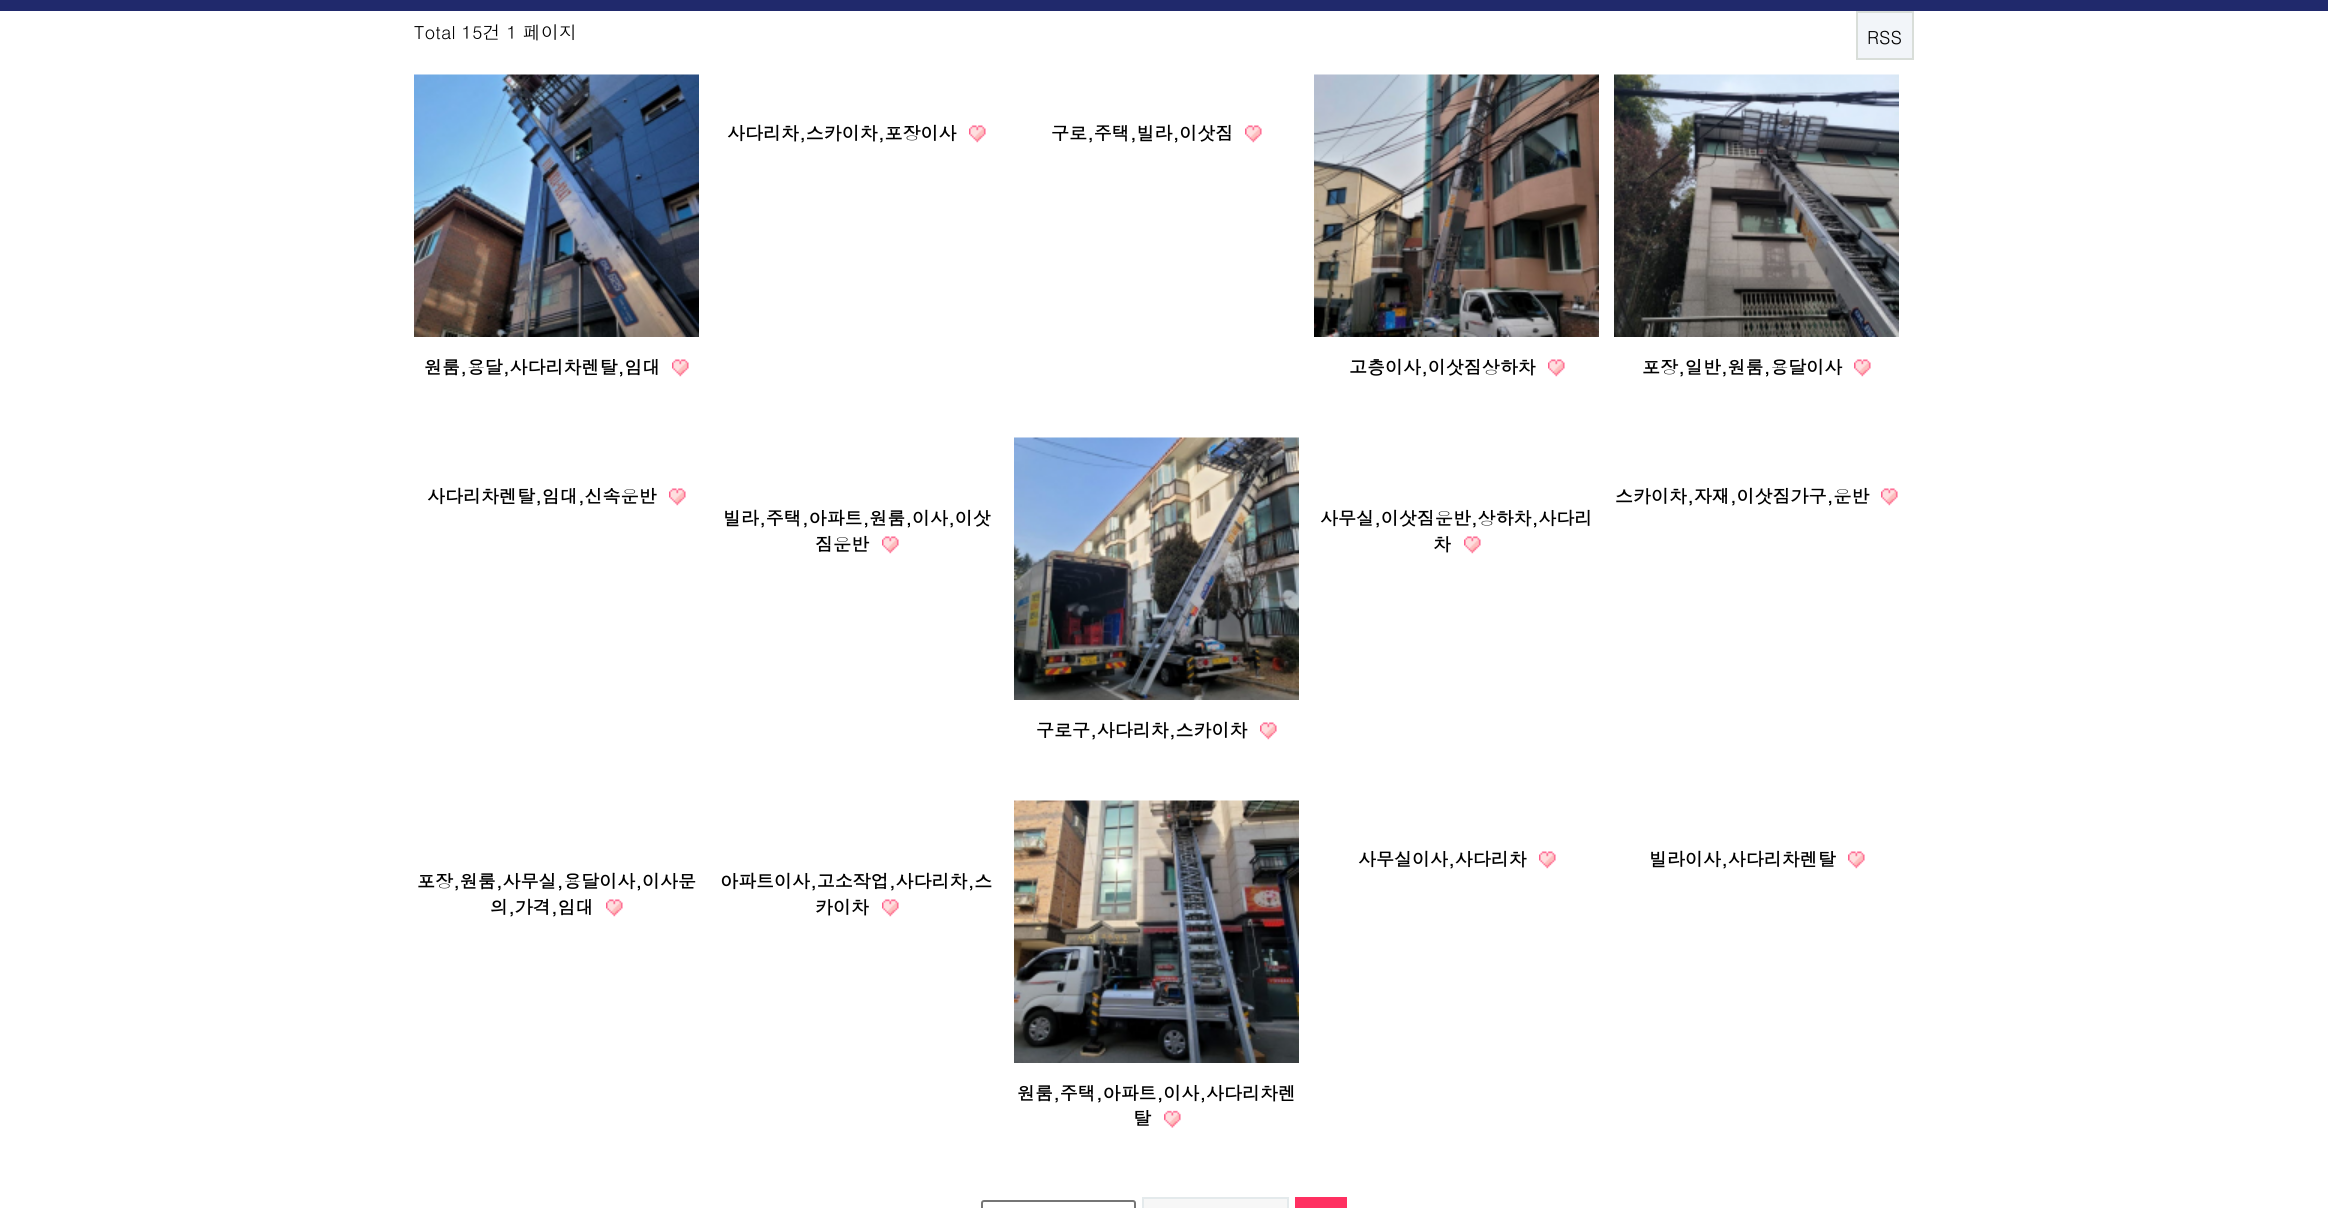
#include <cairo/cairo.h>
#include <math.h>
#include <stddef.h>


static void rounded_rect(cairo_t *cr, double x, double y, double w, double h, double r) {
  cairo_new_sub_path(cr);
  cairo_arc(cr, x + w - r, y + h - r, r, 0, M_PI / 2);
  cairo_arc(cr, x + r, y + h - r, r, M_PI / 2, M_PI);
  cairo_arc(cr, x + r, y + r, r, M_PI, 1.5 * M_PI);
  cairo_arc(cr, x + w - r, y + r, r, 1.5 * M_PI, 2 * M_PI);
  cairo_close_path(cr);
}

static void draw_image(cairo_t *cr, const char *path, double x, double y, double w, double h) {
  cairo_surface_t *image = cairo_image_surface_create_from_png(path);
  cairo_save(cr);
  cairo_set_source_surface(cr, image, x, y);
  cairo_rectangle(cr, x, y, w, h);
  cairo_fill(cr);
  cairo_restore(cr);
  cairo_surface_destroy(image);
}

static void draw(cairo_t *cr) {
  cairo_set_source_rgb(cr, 1, 1, 1);
  cairo_paint(cr);
  cairo_set_source_rgb(cr, 32 / 255.0, 41 / 255.0, 108 / 255.0);
  cairo_rectangle(cr, 0, 0, 2328, 11);
  cairo_fill(cr);
  cairo_set_source_rgb(cr, 242 / 255.0, 245 / 255.0, 249 / 255.0);
  cairo_rectangle(cr, 1857, 12, 56, 47);
  cairo_fill_preserve(cr);
  cairo_set_source_rgb(cr, 217 / 255.0, 222 / 255.0, 217 / 255.0);
  cairo_stroke(cr);
  draw_image(cr, "images/1.png", 969, 125, 17, 18);
  draw_image(cr, "images/2.png", 1245, 125, 17, 18);
  draw_image(cr, "images/3.png", 414, 74, 285, 263);
  draw_image(cr, "images/1.png", 672, 359, 17, 18);
  draw_image(cr, "images/4.png", 1314, 74, 285, 263);
  draw_image(cr, "images/1.png", 1548, 359, 17, 18);
  draw_image(cr, "images/5.png", 1614, 74, 285, 263);
  draw_image(cr, "images/2.png", 1854, 359, 17, 18);
  draw_image(cr, "images/1.png", 669, 488, 17, 18);
  draw_image(cr, "images/2.png", 1881, 488, 17, 18);
  draw_image(cr, "images/1.png", 882, 536, 17, 18);
  draw_image(cr, "images/2.png", 1464, 536, 17, 18);
  draw_image(cr, "images/6.png", 1014, 437, 285, 263);
  draw_image(cr, "images/7.png", 1260, 722, 17, 18);
  draw_image(cr, "images/1.png", 1539, 851, 17, 18);
  draw_image(cr, "images/2.png", 1848, 851, 17, 18);
  draw_image(cr, "images/1.png", 606, 899, 17, 18);
  draw_image(cr, "images/1.png", 882, 899, 17, 18);
  draw_image(cr, "images/8.png", 1014, 800, 285, 263);
  draw_image(cr, "images/9.png", 1164, 1110, 17, 18);
  rounded_rect(cr, 982, 1201, 153, 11, 2);
  cairo_set_source_rgb(cr, 118 / 255.0, 118 / 255.0, 118 / 255.0);
  cairo_stroke(cr);
  cairo_set_source_rgb(cr, 247 / 255.0, 247 / 255.0, 247 / 255.0);
  cairo_rectangle(cr, 1143, 1198, 145, 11);
  cairo_fill_preserve(cr);
  cairo_set_source_rgb(cr, 228 / 255.0, 234 / 255.0, 236 / 255.0);
  cairo_stroke(cr);
  cairo_set_source_rgb(cr, 1, 48 / 255.0, 97 / 255.0);
  cairo_rectangle(cr, 1295, 1197, 52, 11);
  cairo_fill(cr);
  cairo_select_font_face(cr, "Dotum", CAIRO_FONT_SLANT_NORMAL, CAIRO_FONT_WEIGHT_NORMAL);
  cairo_set_font_size(cr, 18);
  cairo_set_source_rgb(cr, 0, 0, 0);
  cairo_move_to(cr, 414, 39);
  cairo_show_text(cr, "Total 15건 1 페이지");
  cairo_move_to(cr, 1867, 44);
  cairo_show_text(cr, "RSS");
  cairo_select_font_face(cr, "Dotum", CAIRO_FONT_SLANT_NORMAL, CAIRO_FONT_WEIGHT_BOLD);
  cairo_move_to(cr, 727, 140);
  cairo_show_text(cr, "사다리차,스카이차,포장이사");
  cairo_move_to(cr, 1051, 140);
  cairo_show_text(cr, "구로,주택,빌라,이삿짐");
  cairo_move_to(cr, 424, 374);
  cairo_show_text(cr, "원룸,용달,사다리차렌탈,임대");
  cairo_move_to(cr, 1349, 374);
  cairo_show_text(cr, "고층이사,이삿짐상하차");
  cairo_move_to(cr, 1642, 374);
  cairo_show_text(cr, "포장,일반,원룸,용달이사");
  cairo_move_to(cr, 427, 503);
  cairo_show_text(cr, "사다리차렌탈,임대,신속운반");
  cairo_move_to(cr, 1615, 503);
  cairo_show_text(cr, "스카이차,자재,이삿짐가구,운반");
  cairo_move_to(cr, 723, 525);
  cairo_show_text(cr, "빌라,주택,아파트,원룸,이사,이삿");
  cairo_move_to(cr, 815, 551);
  cairo_show_text(cr, "짐운반");
  cairo_move_to(cr, 1320, 525);
  cairo_show_text(cr, "사무실,이삿짐운반,상하차,사다리");
  cairo_move_to(cr, 1433, 551);
  cairo_show_text(cr, "차");
  cairo_move_to(cr, 1036, 737);
  cairo_show_text(cr, "구로구,사다리차,스카이차");
  cairo_move_to(cr, 1358, 866);
  cairo_show_text(cr, "사무실이사,사다리차");
  cairo_move_to(cr, 1649, 866);
  cairo_show_text(cr, "빌라이사,사다리차렌탈");
  cairo_move_to(cr, 417, 888);
  cairo_show_text(cr, "포장,원룸,사무실,용달이사,이사문");
  cairo_move_to(cr, 490, 914);
  cairo_show_text(cr, "의,가격,임대");
  cairo_move_to(cr, 720, 888);
  cairo_show_text(cr, "아파트이사,고소작업,사다리차,스");
  cairo_move_to(cr, 815, 914);
  cairo_show_text(cr, "카이차");
  cairo_move_to(cr, 1017, 1100);
  cairo_show_text(cr, "원룸,주택,아파트,이사,사다리차렌");
  cairo_move_to(cr, 1133, 1125);
  cairo_show_text(cr, "탈");
}

int main(void) {
  cairo_surface_t *surface = cairo_image_surface_create(CAIRO_FORMAT_RGB24, 2328, 1208);
  cairo_t *cr = cairo_create(surface);
  cairo_font_options_t *options = cairo_font_options_create();
  cairo_font_options_set_hint_metrics(options, CAIRO_HINT_METRICS_OFF);
  cairo_font_options_set_hint_style(options, CAIRO_HINT_STYLE_NONE);
  cairo_set_font_options(cr, options);
  cairo_set_miter_limit(cr, 4);
  draw(cr);
  cairo_surface_write_to_png(surface, "out.png");
  cairo_font_options_destroy(options);
  cairo_destroy(cr);
  cairo_surface_destroy(surface);
  return 0;
}
